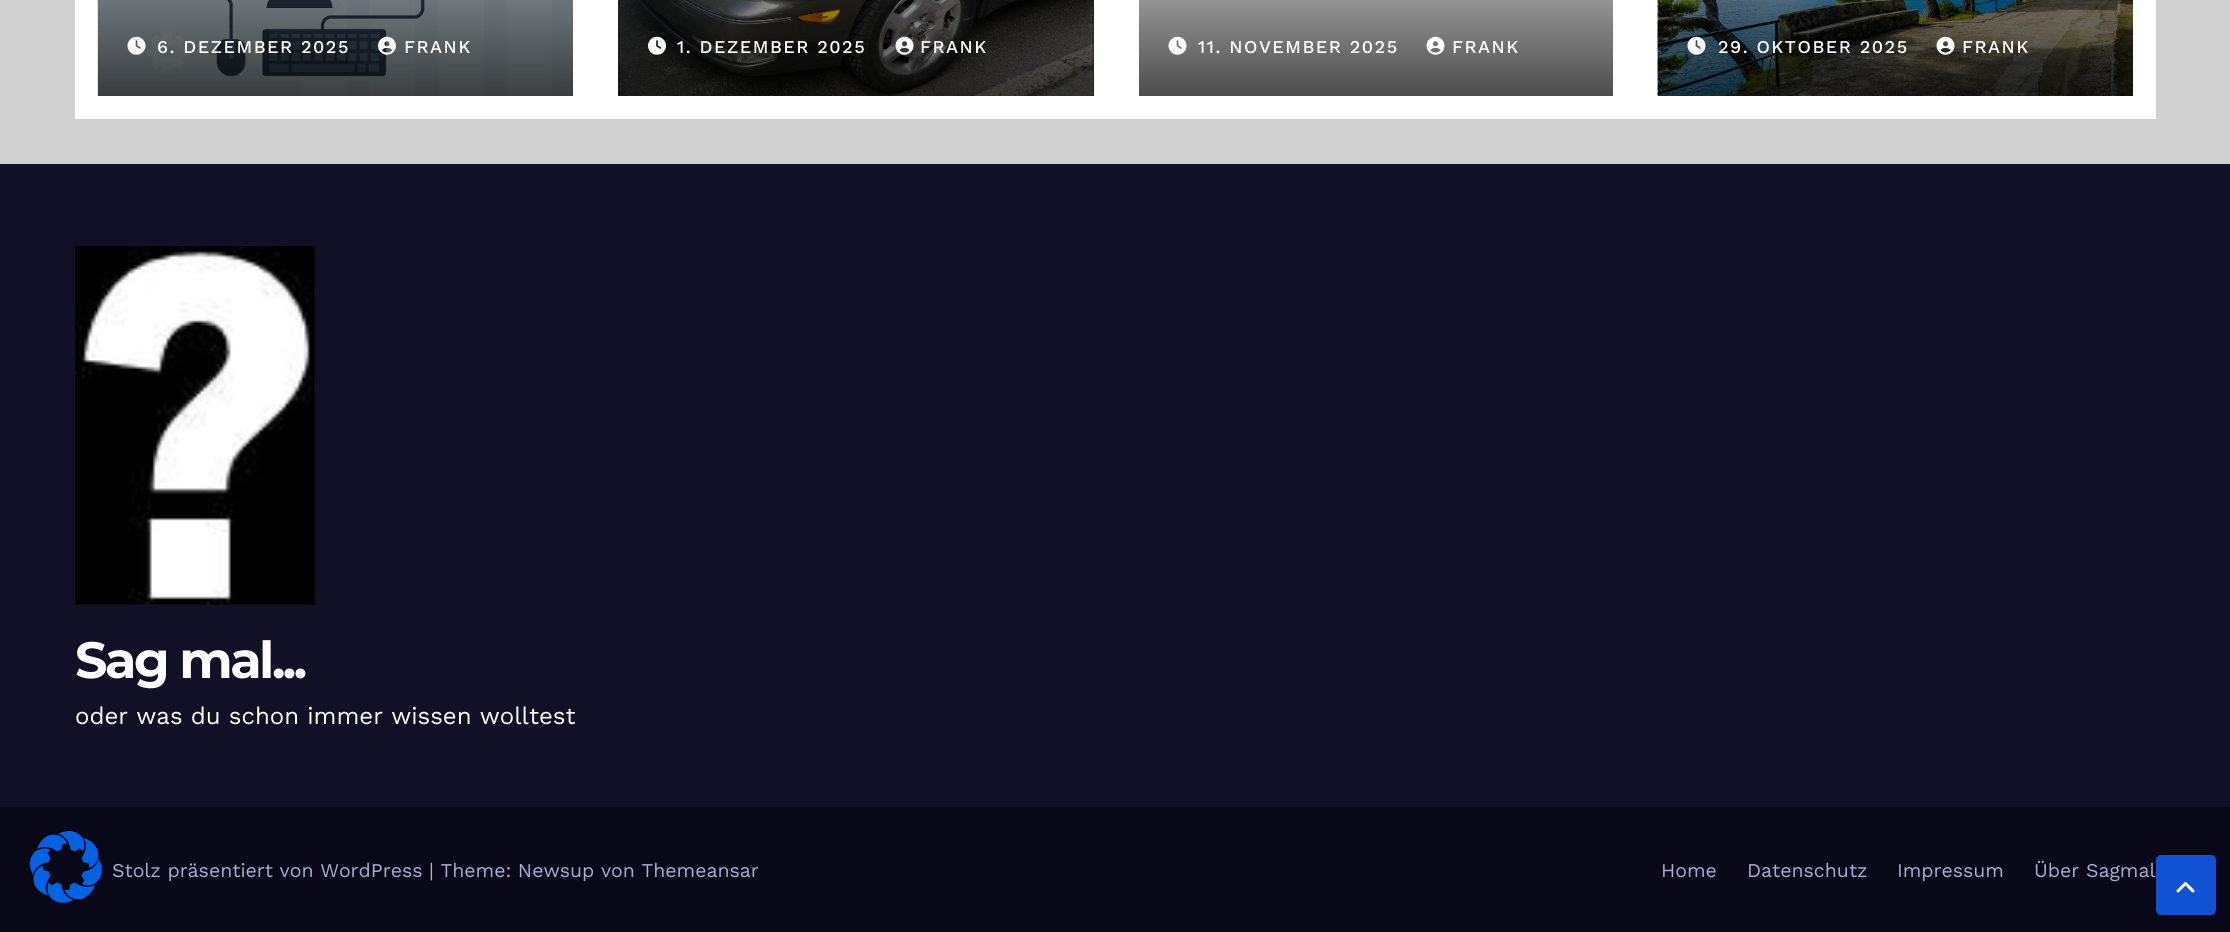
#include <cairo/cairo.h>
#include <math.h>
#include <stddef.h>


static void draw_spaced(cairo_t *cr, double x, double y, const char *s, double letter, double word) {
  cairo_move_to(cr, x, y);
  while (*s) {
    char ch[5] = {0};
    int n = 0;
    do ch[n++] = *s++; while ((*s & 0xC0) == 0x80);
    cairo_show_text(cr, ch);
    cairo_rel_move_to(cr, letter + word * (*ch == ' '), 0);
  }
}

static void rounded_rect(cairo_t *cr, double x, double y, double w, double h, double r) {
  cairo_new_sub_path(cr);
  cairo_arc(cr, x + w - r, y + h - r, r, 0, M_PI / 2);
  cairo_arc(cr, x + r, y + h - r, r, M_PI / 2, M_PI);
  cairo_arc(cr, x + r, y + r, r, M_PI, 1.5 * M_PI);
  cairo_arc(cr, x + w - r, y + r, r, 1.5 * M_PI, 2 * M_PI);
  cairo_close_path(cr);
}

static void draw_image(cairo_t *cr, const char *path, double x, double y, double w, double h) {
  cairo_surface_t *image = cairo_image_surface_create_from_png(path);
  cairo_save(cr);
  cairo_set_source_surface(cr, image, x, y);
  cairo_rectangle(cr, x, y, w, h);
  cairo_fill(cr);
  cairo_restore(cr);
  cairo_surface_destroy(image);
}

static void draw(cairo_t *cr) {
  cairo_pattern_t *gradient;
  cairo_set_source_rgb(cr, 209 / 255.0, 209 / 255.0, 209 / 255.0);
  cairo_paint(cr);
  cairo_set_source_rgb(cr, 9 / 255.0, 8 / 255.0, 24 / 255.0);
  cairo_rectangle(cr, 0, 807, 2230, 125);
  cairo_fill(cr);
  draw_image(cr, "images/1.png", 30, 831, 75, 72);
  cairo_set_source_rgb(cr, 1, 1, 1);
  cairo_rectangle(cr, 75, 0, 2081, 119);
  cairo_fill(cr);
  draw_image(cr, "images/2.png", 97, 0, 476, 96);
  draw_image(cr, "images/3.png", 127, 36, 19, 19);
  draw_image(cr, "images/4.png", 378, 36, 18, 19);
  cairo_set_source_rgb(cr, 51 / 255.0, 51 / 255.0, 51 / 255.0);
  cairo_rectangle(cr, 1093, 0, 1, 96);
  cairo_fill(cr);
  draw_image(cr, "images/5.png", 618, 0, 476, 96);
  gradient = cairo_pattern_create_linear(856, -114, 856, 96);
  cairo_pattern_add_color_stop_rgba(gradient, 0, 0, 0, 0, 0);
  cairo_pattern_add_color_stop_rgba(gradient, 0.5, 0, 0, 0, 0.4);
  cairo_pattern_add_color_stop_rgba(gradient, 1, 0, 0, 0, 0.7);
  cairo_set_source(cr, gradient);
  cairo_pattern_destroy(gradient);
  cairo_rectangle(cr, 618, 0, 476, 96);
  cairo_fill(cr);
  draw_image(cr, "images/6.png", 648, 36, 18, 19);
  draw_image(cr, "images/7.png", 895, 36, 19, 19);
  gradient = cairo_pattern_create_linear(1376, -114, 1376, 96);
  cairo_pattern_add_color_stop_rgba(gradient, 0, 1, 1, 1, 1);
  cairo_pattern_add_color_stop_rgba(gradient, 0.5, 153 / 255.0, 153 / 255.0, 153 / 255.0, 1);
  cairo_pattern_add_color_stop_rgba(gradient, 1, 77 / 255.0, 77 / 255.0, 77 / 255.0, 1);
  cairo_set_source(cr, gradient);
  cairo_pattern_destroy(gradient);
  cairo_rectangle(cr, 1139, 0, 474, 96);
  cairo_fill(cr);
  draw_image(cr, "images/8.png", 1168, 36, 19, 19);
  draw_image(cr, "images/9.png", 1426, 36, 19, 19);
  draw_image(cr, "images/10.png", 1657, 0, 476, 96);
  draw_image(cr, "images/11.png", 1687, 36, 19, 19);
  draw_image(cr, "images/12.png", 1936, 36, 19, 19);
  cairo_set_source_rgb(cr, 18 / 255.0, 16 / 255.0, 38 / 255.0);
  cairo_rectangle(cr, 0, 164, 2230, 643);
  cairo_fill(cr);
  draw_image(cr, "images/13.png", 75, 246, 240, 359);
  cairo_set_source_rgb(cr, 17 / 255.0, 81 / 255.0, 211 / 255.0);
  rounded_rect(cr, 2157.5, 856.5, 57, 57, 3.5);
  cairo_fill_preserve(cr);
  cairo_set_line_width(cr, 3);
  cairo_stroke(cr);
  draw_image(cr, "images/14.png", 2176, 882, 19, 11);
  cairo_select_font_face(cr, "Work Sans Medium", CAIRO_FONT_SLANT_NORMAL, CAIRO_FONT_WEIGHT_NORMAL);
  cairo_set_font_size(cr, 18);
  cairo_set_source_rgb(cr, 1, 1, 1);
  draw_spaced(cr, 157, 53, "6. DEZEMBER 2025", 1.5, 0);
  draw_spaced(cr, 404, 53, "FRANK", 1.5, 0);
  draw_spaced(cr, 677, 53, "1. DEZEMBER 2025", 1.5, 0);
  draw_spaced(cr, 920, 53, "FRANK", 1.5, 0);
  draw_spaced(cr, 1198, 53, "11. NOVEMBER 2025", 1.5, 0);
  draw_spaced(cr, 1452, 53, "FRANK", 1.5, 0);
  draw_spaced(cr, 1718, 53, "29. OKTOBER 2025", 1.5, 0);
  draw_spaced(cr, 1962, 53, "FRANK", 1.5, 0);
  cairo_select_font_face(cr, "Montserrat", CAIRO_FONT_SLANT_NORMAL, CAIRO_FONT_WEIGHT_BOLD);
  cairo_set_font_size(cr, 51);
  draw_spaced(cr, 75, 678, "Sag mal...", -2.5, 0);
  cairo_select_font_face(cr, "Work Sans", CAIRO_FONT_SLANT_NORMAL, CAIRO_FONT_WEIGHT_NORMAL);
  cairo_set_font_size(cr, 24);
  cairo_move_to(cr, 75, 724);
  cairo_show_text(cr, "oder was du schon immer wissen wolltest");
  cairo_set_font_size(cr, 19.5);
  cairo_set_source_rgb(cr, 170 / 255.0, 174 / 255.0, 209 / 255.0);
  cairo_move_to(cr, 112, 877);
  cairo_show_text(cr, "Stolz präsentiert von WordPress | Theme: Newsup von Themeansar");
  cairo_move_to(cr, 1661, 877);
  cairo_show_text(cr, "Home");
  cairo_move_to(cr, 1747, 877);
  cairo_show_text(cr, "Datenschutz");
  cairo_move_to(cr, 1897, 877);
  cairo_show_text(cr, "Impressum");
  cairo_move_to(cr, 2034, 877);
  cairo_show_text(cr, "Über Sagmal");
}

int main(void) {
  cairo_surface_t *surface = cairo_image_surface_create(CAIRO_FORMAT_RGB24, 2230, 932);
  cairo_t *cr = cairo_create(surface);
  cairo_font_options_t *options = cairo_font_options_create();
  cairo_font_options_set_hint_metrics(options, CAIRO_HINT_METRICS_OFF);
  cairo_font_options_set_hint_style(options, CAIRO_HINT_STYLE_NONE);
  cairo_set_font_options(cr, options);
  cairo_set_miter_limit(cr, 4);
  draw(cr);
  cairo_surface_write_to_png(surface, "out.png");
  cairo_font_options_destroy(options);
  cairo_destroy(cr);
  cairo_surface_destroy(surface);
  return 0;
}
